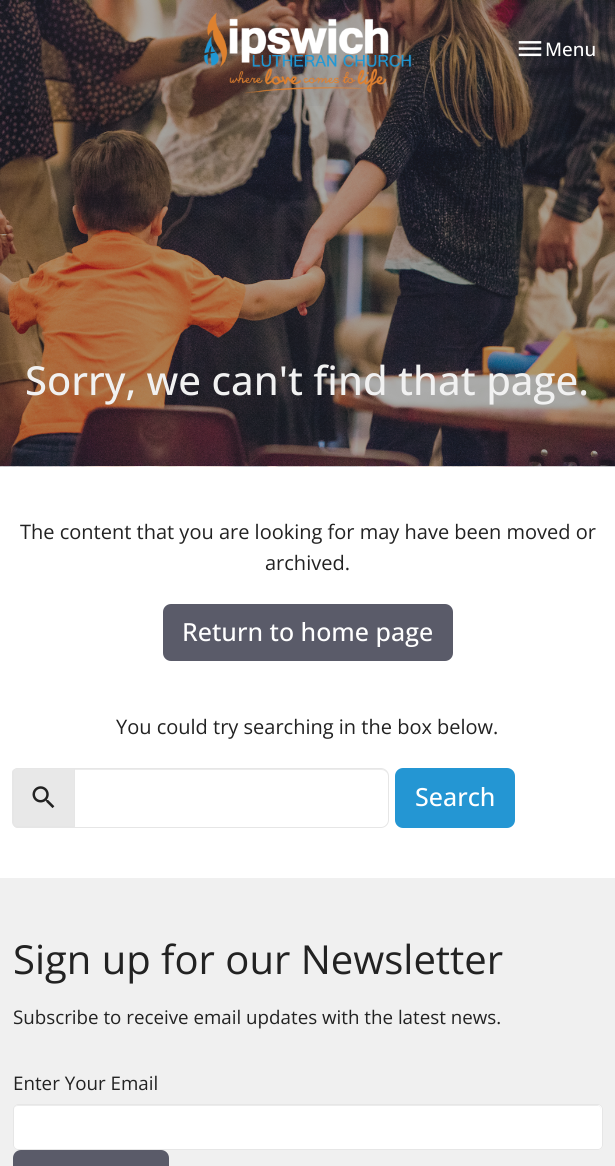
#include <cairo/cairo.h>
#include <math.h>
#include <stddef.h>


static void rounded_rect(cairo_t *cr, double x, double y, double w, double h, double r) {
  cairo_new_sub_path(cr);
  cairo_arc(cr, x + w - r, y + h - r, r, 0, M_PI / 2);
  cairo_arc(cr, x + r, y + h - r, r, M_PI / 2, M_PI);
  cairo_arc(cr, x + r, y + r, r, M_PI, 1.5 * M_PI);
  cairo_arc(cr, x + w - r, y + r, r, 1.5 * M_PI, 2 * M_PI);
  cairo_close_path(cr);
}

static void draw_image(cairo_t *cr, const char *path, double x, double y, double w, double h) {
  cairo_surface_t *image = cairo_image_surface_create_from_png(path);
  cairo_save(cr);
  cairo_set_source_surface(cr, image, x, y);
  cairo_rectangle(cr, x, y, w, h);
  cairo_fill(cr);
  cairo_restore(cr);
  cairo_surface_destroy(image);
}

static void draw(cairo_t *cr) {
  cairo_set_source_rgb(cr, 1, 1, 1);
  cairo_paint(cr);
  draw_image(cr, "images/3.png", 0, 0, 615, 467);
  cairo_set_source_rgba(cr, 90 / 255.0, 91 / 255.0, 105 / 255.0, 0.05);
  cairo_rectangle(cr, 0, 0, 615, 106);
  cairo_fill(cr);
  draw_image(cr, "images/1.png", 203, 12, 209, 82);
  draw_image(cr, "images/2.png", 518, 41, 24, 16);
  cairo_set_source_rgb(cr, 90 / 255.0, 91 / 255.0, 105 / 255.0);
  rounded_rect(cr, 163, 604, 290, 57, 8);
  cairo_fill(cr);
  cairo_set_source_rgb(cr, 232 / 255.0, 232 / 255.0, 232 / 255.0);
  cairo_new_path(cr);
  cairo_move_to(cr, 18, 768);
  cairo_line_to(cr, 74, 768);
  cairo_line_to(cr, 74, 828);
  cairo_line_to(cr, 18, 828);
  cairo_curve_to(cr, 15, 828, 13, 826, 13, 823);
  cairo_line_to(cr, 13, 773);
  cairo_curve_to(cr, 13, 770, 15, 768, 18, 768);
  cairo_close_path(cr);
  cairo_fill(cr);
  cairo_set_source_rgb(cr, 230 / 255.0, 230 / 255.0, 230 / 255.0);
  cairo_set_fill_rule(cr, CAIRO_FILL_RULE_EVEN_ODD);
  cairo_new_path(cr);
  cairo_move_to(cr, 18, 768);
  cairo_line_to(cr, 74, 768);
  cairo_line_to(cr, 74, 828);
  cairo_line_to(cr, 18, 828);
  cairo_curve_to(cr, 15, 828, 12, 825, 12, 822);
  cairo_line_to(cr, 12, 772);
  cairo_curve_to(cr, 12, 770, 15, 768, 18, 768);
  cairo_close_path(cr);
  cairo_move_to(cr, 18, 769);
  cairo_line_to(cr, 74, 769);
  cairo_line_to(cr, 74, 826);
  cairo_line_to(cr, 18, 826);
  cairo_curve_to(cr, 15, 826, 14, 825, 14, 822);
  cairo_line_to(cr, 14, 772);
  cairo_curve_to(cr, 14, 770, 15, 769, 18, 769);
  cairo_close_path(cr);
  cairo_fill(cr);
  draw_image(cr, "images/4.png", 32, 786, 23, 22);
  cairo_set_source_rgb(cr, 236 / 255.0, 236 / 255.0, 236 / 255.0);
  cairo_set_fill_rule(cr, CAIRO_FILL_RULE_WINDING);
  cairo_new_path(cr);
  cairo_move_to(cr, 75, 770);
  cairo_line_to(cr, 381, 770);
  cairo_curve_to(cr, 385, 770, 388, 773, 388, 776);
  cairo_line_to(cr, 388, 775);
  cairo_curve_to(cr, 388, 772, 385, 769, 382, 769);
  cairo_line_to(cr, 75, 769);
  cairo_close_path(cr);
  cairo_fill(cr);
  cairo_new_path(cr);
  cairo_move_to(cr, 74.5, 768.5);
  cairo_line_to(cr, 381, 768.5);
  cairo_curve_to(cr, 385, 768.5, 388.5, 772, 388.5, 776);
  cairo_line_to(cr, 388.5, 820);
  cairo_curve_to(cr, 388.5, 824, 385, 827.5, 381, 827.5);
  cairo_line_to(cr, 74.5, 827.5);
  cairo_close_path(cr);
  cairo_set_source_rgb(cr, 230 / 255.0, 230 / 255.0, 230 / 255.0);
  cairo_set_line_width(cr, 1);
  cairo_stroke(cr);
  cairo_set_source_rgb(cr, 36 / 255.0, 150 / 255.0, 211 / 255.0);
  rounded_rect(cr, 395, 768, 120, 60, 8);
  cairo_fill(cr);
  cairo_set_source_rgb(cr, 240 / 255.0, 240 / 255.0, 240 / 255.0);
  cairo_rectangle(cr, 0, 878, 615, 288);
  cairo_fill(cr);
  cairo_set_source_rgb(cr, 1, 1, 1);
  rounded_rect(cr, 13, 1104, 590, 46, 5);
  cairo_fill(cr);
  cairo_set_source_rgb(cr, 236 / 255.0, 236 / 255.0, 236 / 255.0);
  cairo_new_path(cr);
  cairo_move_to(cr, 18, 1106);
  cairo_line_to(cr, 598, 1106);
  cairo_curve_to(cr, 600, 1106, 601, 1108, 601, 1110);
  cairo_line_to(cr, 601, 1109);
  cairo_curve_to(cr, 601, 1107, 599, 1105, 597, 1105);
  cairo_line_to(cr, 18, 1105);
  cairo_curve_to(cr, 16, 1105, 14, 1107, 14, 1109);
  cairo_line_to(cr, 14, 1110);
  cairo_curve_to(cr, 14, 1108, 15, 1106, 18, 1106);
  cairo_close_path(cr);
  cairo_fill(cr);
  rounded_rect(cr, 13.5, 1104.5, 589, 45, 4.5);
  cairo_set_source_rgb(cr, 230 / 255.0, 230 / 255.0, 230 / 255.0);
  cairo_stroke(cr);
  cairo_set_source_rgb(cr, 90 / 255.0, 91 / 255.0, 105 / 255.0);
  rounded_rect(cr, 13, 1150, 156, 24, 8);
  cairo_fill(cr);
  cairo_select_font_face(cr, "Open Sans Medium", CAIRO_FONT_SLANT_NORMAL, CAIRO_FONT_WEIGHT_NORMAL);
  cairo_set_font_size(cr, 18.75);
  cairo_set_source_rgb(cr, 1, 1, 1);
  cairo_move_to(cr, 545, 56);
  cairo_show_text(cr, "Menu");
  cairo_set_font_size(cr, 40);
  cairo_set_source_rgb(cr, 241 / 255.0, 241 / 255.0, 241 / 255.0);
  cairo_move_to(cr, 25, 395);
  cairo_show_text(cr, "Sorry, we can't find that page.");
  cairo_select_font_face(cr, "Open Sans", CAIRO_FONT_SLANT_NORMAL, CAIRO_FONT_WEIGHT_NORMAL);
  cairo_set_font_size(cr, 20);
  cairo_set_source_rgb(cr, 34 / 255.0, 34 / 255.0, 34 / 255.0);
  cairo_move_to(cr, 20, 539);
  cairo_show_text(cr, "The content that you are looking for may have been moved or");
  cairo_move_to(cr, 265, 570);
  cairo_show_text(cr, "archived.");
  cairo_select_font_face(cr, "Open Sans Medium", CAIRO_FONT_SLANT_NORMAL, CAIRO_FONT_WEIGHT_NORMAL);
  cairo_set_font_size(cr, 25);
  cairo_set_source_rgb(cr, 1, 1, 1);
  cairo_move_to(cr, 182, 641);
  cairo_show_text(cr, "Return to home page");
  cairo_select_font_face(cr, "Open Sans", CAIRO_FONT_SLANT_NORMAL, CAIRO_FONT_WEIGHT_NORMAL);
  cairo_set_font_size(cr, 20);
  cairo_set_source_rgb(cr, 34 / 255.0, 34 / 255.0, 34 / 255.0);
  cairo_move_to(cr, 116, 734);
  cairo_show_text(cr, "You could try searching in the box below.");
  cairo_select_font_face(cr, "Open Sans Medium", CAIRO_FONT_SLANT_NORMAL, CAIRO_FONT_WEIGHT_NORMAL);
  cairo_set_font_size(cr, 25);
  cairo_set_source_rgb(cr, 1, 1, 1);
  cairo_move_to(cr, 415, 806);
  cairo_show_text(cr, "Search");
  cairo_select_font_face(cr, "Open Sans", CAIRO_FONT_SLANT_NORMAL, CAIRO_FONT_WEIGHT_NORMAL);
  cairo_set_font_size(cr, 40);
  cairo_set_source_rgb(cr, 34 / 255.0, 34 / 255.0, 34 / 255.0);
  cairo_move_to(cr, 13, 974);
  cairo_show_text(cr, "Sign up for our Newsletter");
  cairo_set_font_size(cr, 18.75);
  cairo_move_to(cr, 13, 1024);
  cairo_show_text(cr, "Subscribe to receive email updates with the latest news.");
  cairo_move_to(cr, 13, 1090);
  cairo_show_text(cr, "Enter Your Email");
}

int main(void) {
  cairo_surface_t *surface = cairo_image_surface_create(CAIRO_FORMAT_RGB24, 615, 1166);
  cairo_t *cr = cairo_create(surface);
  cairo_font_options_t *options = cairo_font_options_create();
  cairo_font_options_set_hint_metrics(options, CAIRO_HINT_METRICS_OFF);
  cairo_font_options_set_hint_style(options, CAIRO_HINT_STYLE_NONE);
  cairo_set_font_options(cr, options);
  cairo_set_miter_limit(cr, 4);
  draw(cr);
  cairo_surface_write_to_png(surface, "out.png");
  cairo_font_options_destroy(options);
  cairo_destroy(cr);
  cairo_surface_destroy(surface);
  return 0;
}
